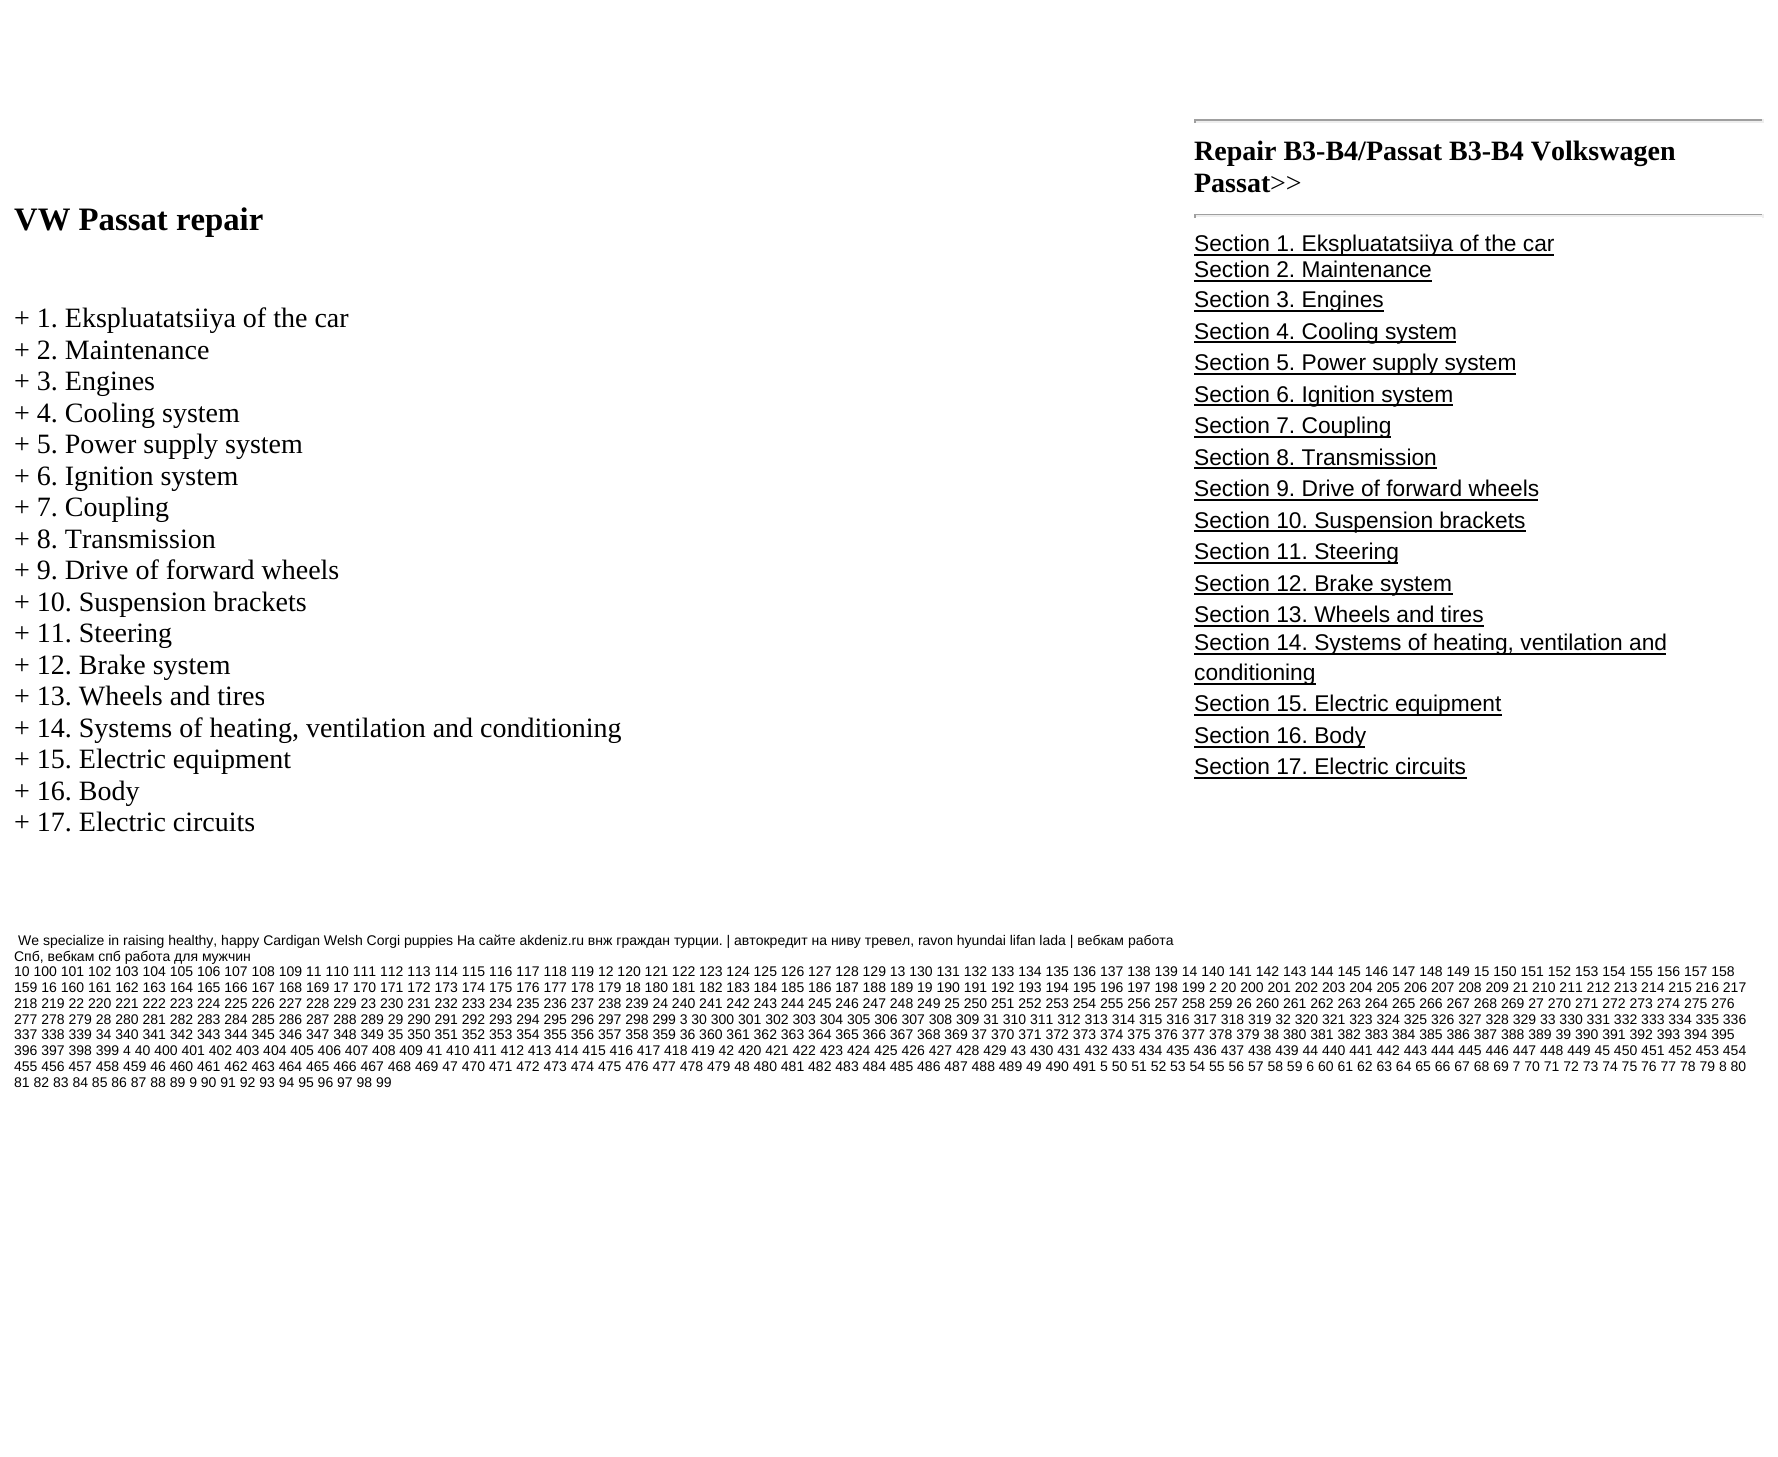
#include <cairo/cairo.h>
#include <math.h>
#include <stddef.h>


static void draw(cairo_t *cr) {
  cairo_set_source_rgb(cr, 1, 1, 1);
  cairo_paint(cr);
  cairo_set_source_rgb(cr, 159 / 255.0, 159 / 255.0, 159 / 255.0);
  cairo_rectangle(cr, 1194, 119, 570, 2);
  cairo_fill(cr);
  cairo_set_source_rgb(cr, 238 / 255.0, 238 / 255.0, 238 / 255.0);
  cairo_rectangle(cr, 1762, 119, 2, 4);
  cairo_fill(cr);
  cairo_rectangle(cr, 1194, 121, 570, 2);
  cairo_fill(cr);
  cairo_set_source_rgb(cr, 159 / 255.0, 159 / 255.0, 159 / 255.0);
  cairo_rectangle(cr, 1194, 119, 2, 4);
  cairo_fill(cr);
  cairo_rectangle(cr, 1194, 214, 570, 1);
  cairo_fill(cr);
  cairo_set_source_rgb(cr, 238 / 255.0, 238 / 255.0, 238 / 255.0);
  cairo_rectangle(cr, 1762, 214, 2, 4);
  cairo_fill(cr);
  cairo_rectangle(cr, 1194, 215, 570, 2);
  cairo_fill(cr);
  cairo_set_source_rgb(cr, 159 / 255.0, 159 / 255.0, 159 / 255.0);
  cairo_rectangle(cr, 1194, 214, 2, 4);
  cairo_fill(cr);
  cairo_set_source_rgb(cr, 0, 0, 0);
  cairo_rectangle(cr, 1194, 254, 360, 2);
  cairo_fill(cr);
  cairo_rectangle(cr, 1194, 280, 238, 2);
  cairo_fill(cr);
  cairo_rectangle(cr, 1194, 310, 190, 2);
  cairo_fill(cr);
  cairo_rectangle(cr, 1194, 341, 262, 2);
  cairo_fill(cr);
  cairo_rectangle(cr, 1194, 373, 322, 2);
  cairo_fill(cr);
  cairo_rectangle(cr, 1194, 404, 259, 2);
  cairo_fill(cr);
  cairo_rectangle(cr, 1194, 436, 197, 2);
  cairo_fill(cr);
  cairo_rectangle(cr, 1194, 467, 243, 2);
  cairo_fill(cr);
  cairo_rectangle(cr, 1194, 499, 344, 2);
  cairo_fill(cr);
  cairo_rectangle(cr, 1194, 530, 332, 2);
  cairo_fill(cr);
  cairo_rectangle(cr, 1194, 562, 204, 2);
  cairo_fill(cr);
  cairo_rectangle(cr, 1194, 593, 259, 2);
  cairo_fill(cr);
  cairo_rectangle(cr, 1194, 625, 290, 2);
  cairo_fill(cr);
  cairo_rectangle(cr, 1194, 653, 472, 2);
  cairo_fill(cr);
  cairo_rectangle(cr, 1194, 683, 122, 2);
  cairo_fill(cr);
  cairo_rectangle(cr, 1194, 714, 308, 2);
  cairo_fill(cr);
  cairo_rectangle(cr, 1194, 746, 171, 2);
  cairo_fill(cr);
  cairo_rectangle(cr, 1194, 777, 273, 2);
  cairo_fill(cr);
  cairo_select_font_face(cr, "Liberation Serif", CAIRO_FONT_SLANT_NORMAL, CAIRO_FONT_WEIGHT_BOLD);
  cairo_set_font_size(cr, 32.75);
  cairo_move_to(cr, 14, 230);
  cairo_show_text(cr, "VW Passat repair");
  cairo_select_font_face(cr, "Liberation Serif", CAIRO_FONT_SLANT_NORMAL, CAIRO_FONT_WEIGHT_NORMAL);
  cairo_set_font_size(cr, 28);
  cairo_move_to(cr, 14, 327);
  cairo_show_text(cr, "+ 1. Ekspluatatsiiya of the car");
  cairo_move_to(cr, 14, 359);
  cairo_show_text(cr, "+ 2. Maintenance");
  cairo_move_to(cr, 14, 390);
  cairo_show_text(cr, "+ 3. Engines");
  cairo_move_to(cr, 14, 422);
  cairo_show_text(cr, "+ 4. Cooling system");
  cairo_move_to(cr, 14, 453);
  cairo_show_text(cr, "+ 5. Power supply system");
  cairo_move_to(cr, 14, 485);
  cairo_show_text(cr, "+ 6. Ignition system");
  cairo_move_to(cr, 14, 516);
  cairo_show_text(cr, "+ 7. Coupling");
  cairo_move_to(cr, 14, 548);
  cairo_show_text(cr, "+ 8. Transmission");
  cairo_move_to(cr, 14, 579);
  cairo_show_text(cr, "+ 9. Drive of forward wheels");
  cairo_move_to(cr, 14, 611);
  cairo_show_text(cr, "+ 10. Suspension brackets");
  cairo_move_to(cr, 14, 642);
  cairo_show_text(cr, "+ 11. Steering");
  cairo_move_to(cr, 14, 674);
  cairo_show_text(cr, "+ 12. Brake system");
  cairo_move_to(cr, 14, 705);
  cairo_show_text(cr, "+ 13. Wheels and tires");
  cairo_move_to(cr, 14, 737);
  cairo_show_text(cr, "+ 14. Systems of heating, ventilation and conditioning");
  cairo_move_to(cr, 14, 768);
  cairo_show_text(cr, "+ 15. Electric equipment");
  cairo_move_to(cr, 14, 800);
  cairo_show_text(cr, "+ 16. Body");
  cairo_move_to(cr, 14, 831);
  cairo_show_text(cr, "+ 17. Electric circuits");
  cairo_select_font_face(cr, "Liberation Sans", CAIRO_FONT_SLANT_NORMAL, CAIRO_FONT_WEIGHT_NORMAL);
  cairo_set_font_size(cr, 14);
  cairo_move_to(cr, 18, 945);
  cairo_show_text(cr, "We specialize in raising healthy, happy Cardigan Welsh Corgi puppies На сайте akdeniz.ru внж граждан турции. | автокредит на ниву тревел, ravon hyundai lifan lada | вебкам работа");
  cairo_move_to(cr, 14, 961);
  cairo_show_text(cr, "Спб, вебкам спб работа для мужчин");
  cairo_select_font_face(cr, "Liberation Serif", CAIRO_FONT_SLANT_NORMAL, CAIRO_FONT_WEIGHT_BOLD);
  cairo_set_font_size(cr, 28);
  cairo_move_to(cr, 1194, 160);
  cairo_show_text(cr, "Repair B3-B4/Passat B3-B4 Volkswagen");
  cairo_move_to(cr, 1194, 192);
  cairo_show_text(cr, "Passat");
  cairo_select_font_face(cr, "Liberation Serif", CAIRO_FONT_SLANT_NORMAL, CAIRO_FONT_WEIGHT_NORMAL);
  cairo_move_to(cr, 1270, 192);
  cairo_show_text(cr, ">>");
  cairo_select_font_face(cr, "Liberation Sans", CAIRO_FONT_SLANT_NORMAL, CAIRO_FONT_WEIGHT_NORMAL);
  cairo_set_font_size(cr, 22.75);
  cairo_move_to(cr, 1194, 251);
  cairo_show_text(cr, "Section 1. Ekspluatatsiiya of the car");
  cairo_move_to(cr, 1194, 277);
  cairo_show_text(cr, "Section 2. Maintenance");
  cairo_move_to(cr, 1194, 307);
  cairo_show_text(cr, "Section 3. Engines");
  cairo_move_to(cr, 1194, 339);
  cairo_show_text(cr, "Section 4. Cooling system");
  cairo_move_to(cr, 1194, 370);
  cairo_show_text(cr, "Section 5. Power supply system");
  cairo_move_to(cr, 1194, 402);
  cairo_show_text(cr, "Section 6. Ignition system");
  cairo_move_to(cr, 1194, 433);
  cairo_show_text(cr, "Section 7. Coupling");
  cairo_move_to(cr, 1194, 465);
  cairo_show_text(cr, "Section 8. Transmission");
  cairo_move_to(cr, 1194, 496);
  cairo_show_text(cr, "Section 9. Drive of forward wheels");
  cairo_move_to(cr, 1194, 528);
  cairo_show_text(cr, "Section 10. Suspension brackets");
  cairo_move_to(cr, 1194, 559);
  cairo_show_text(cr, "Section 11. Steering");
  cairo_move_to(cr, 1194, 591);
  cairo_show_text(cr, "Section 12. Brake system");
  cairo_move_to(cr, 1194, 622);
  cairo_show_text(cr, "Section 13. Wheels and tires");
  cairo_move_to(cr, 1194, 650);
  cairo_show_text(cr, "Section 14. Systems of heating, ventilation and");
  cairo_move_to(cr, 1194, 680);
  cairo_show_text(cr, "conditioning");
  cairo_move_to(cr, 1194, 711);
  cairo_show_text(cr, "Section 15. Electric equipment");
  cairo_move_to(cr, 1194, 743);
  cairo_show_text(cr, "Section 16. Body");
  cairo_move_to(cr, 1194, 774);
  cairo_show_text(cr, "Section 17. Electric circuits");
  cairo_set_font_size(cr, 14);
  cairo_move_to(cr, 14, 976);
  cairo_show_text(cr, "10 100 101 102 103 104 105 106 107 108 109 11 110 111 112 113 114 115 116 117 118 119 12 120 121 122 123 124 125 126 127 128 129 13 130 131 132 133 134 135 136 137 138 139 14 140 141 142 143 144 145 146 147 148 149 15 150 151 152 153 154 155 156 157 158");
  cairo_move_to(cr, 14, 992);
  cairo_show_text(cr, "159 16 160 161 162 163 164 165 166 167 168 169 17 170 171 172 173 174 175 176 177 178 179 18 180 181 182 183 184 185 186 187 188 189 19 190 191 192 193 194 195 196 197 198 199 2 20 200 201 202 203 204 205 206 207 208 209 21 210 211 212 213 214 215 216 217");
  cairo_move_to(cr, 14, 1008);
  cairo_show_text(cr, "218 219 22 220 221 222 223 224 225 226 227 228 229 23 230 231 232 233 234 235 236 237 238 239 24 240 241 242 243 244 245 246 247 248 249 25 250 251 252 253 254 255 256 257 258 259 26 260 261 262 263 264 265 266 267 268 269 27 270 271 272 273 274 275 276");
  cairo_move_to(cr, 14, 1024);
  cairo_show_text(cr, "277 278 279 28 280 281 282 283 284 285 286 287 288 289 29 290 291 292 293 294 295 296 297 298 299 3 30 300 301 302 303 304 305 306 307 308 309 31 310 311 312 313 314 315 316 317 318 319 32 320 321 323 324 325 326 327 328 329 33 330 331 332 333 334 335 336");
  cairo_move_to(cr, 14, 1039);
  cairo_show_text(cr, "337 338 339 34 340 341 342 343 344 345 346 347 348 349 35 350 351 352 353 354 355 356 357 358 359 36 360 361 362 363 364 365 366 367 368 369 37 370 371 372 373 374 375 376 377 378 379 38 380 381 382 383 384 385 386 387 388 389 39 390 391 392 393 394 395");
  cairo_move_to(cr, 14, 1055);
  cairo_show_text(cr, "396 397 398 399 4 40 400 401 402 403 404 405 406 407 408 409 41 410 411 412 413 414 415 416 417 418 419 42 420 421 422 423 424 425 426 427 428 429 43 430 431 432 433 434 435 436 437 438 439 44 440 441 442 443 444 445 446 447 448 449 45 450 451 452 453 454");
  cairo_move_to(cr, 14, 1071);
  cairo_show_text(cr, "455 456 457 458 459 46 460 461 462 463 464 465 466 467 468 469 47 470 471 472 473 474 475 476 477 478 479 48 480 481 482 483 484 485 486 487 488 489 49 490 491 5 50 51 52 53 54 55 56 57 58 59 6 60 61 62 63 64 65 66 67 68 69 7 70 71 72 73 74 75 76 77 78 79 8 80");
  cairo_move_to(cr, 14, 1087);
  cairo_show_text(cr, "81 82 83 84 85 86 87 88 89 9 90 91 92 93 94 95 96 97 98 99");
}

int main(void) {
  cairo_surface_t *surface = cairo_image_surface_create(CAIRO_FORMAT_RGB24, 1778, 1457);
  cairo_t *cr = cairo_create(surface);
  cairo_font_options_t *options = cairo_font_options_create();
  cairo_font_options_set_hint_metrics(options, CAIRO_HINT_METRICS_OFF);
  cairo_font_options_set_hint_style(options, CAIRO_HINT_STYLE_NONE);
  cairo_set_font_options(cr, options);
  cairo_set_miter_limit(cr, 4);
  draw(cr);
  cairo_surface_write_to_png(surface, "out.png");
  cairo_font_options_destroy(options);
  cairo_destroy(cr);
  cairo_surface_destroy(surface);
  return 0;
}
